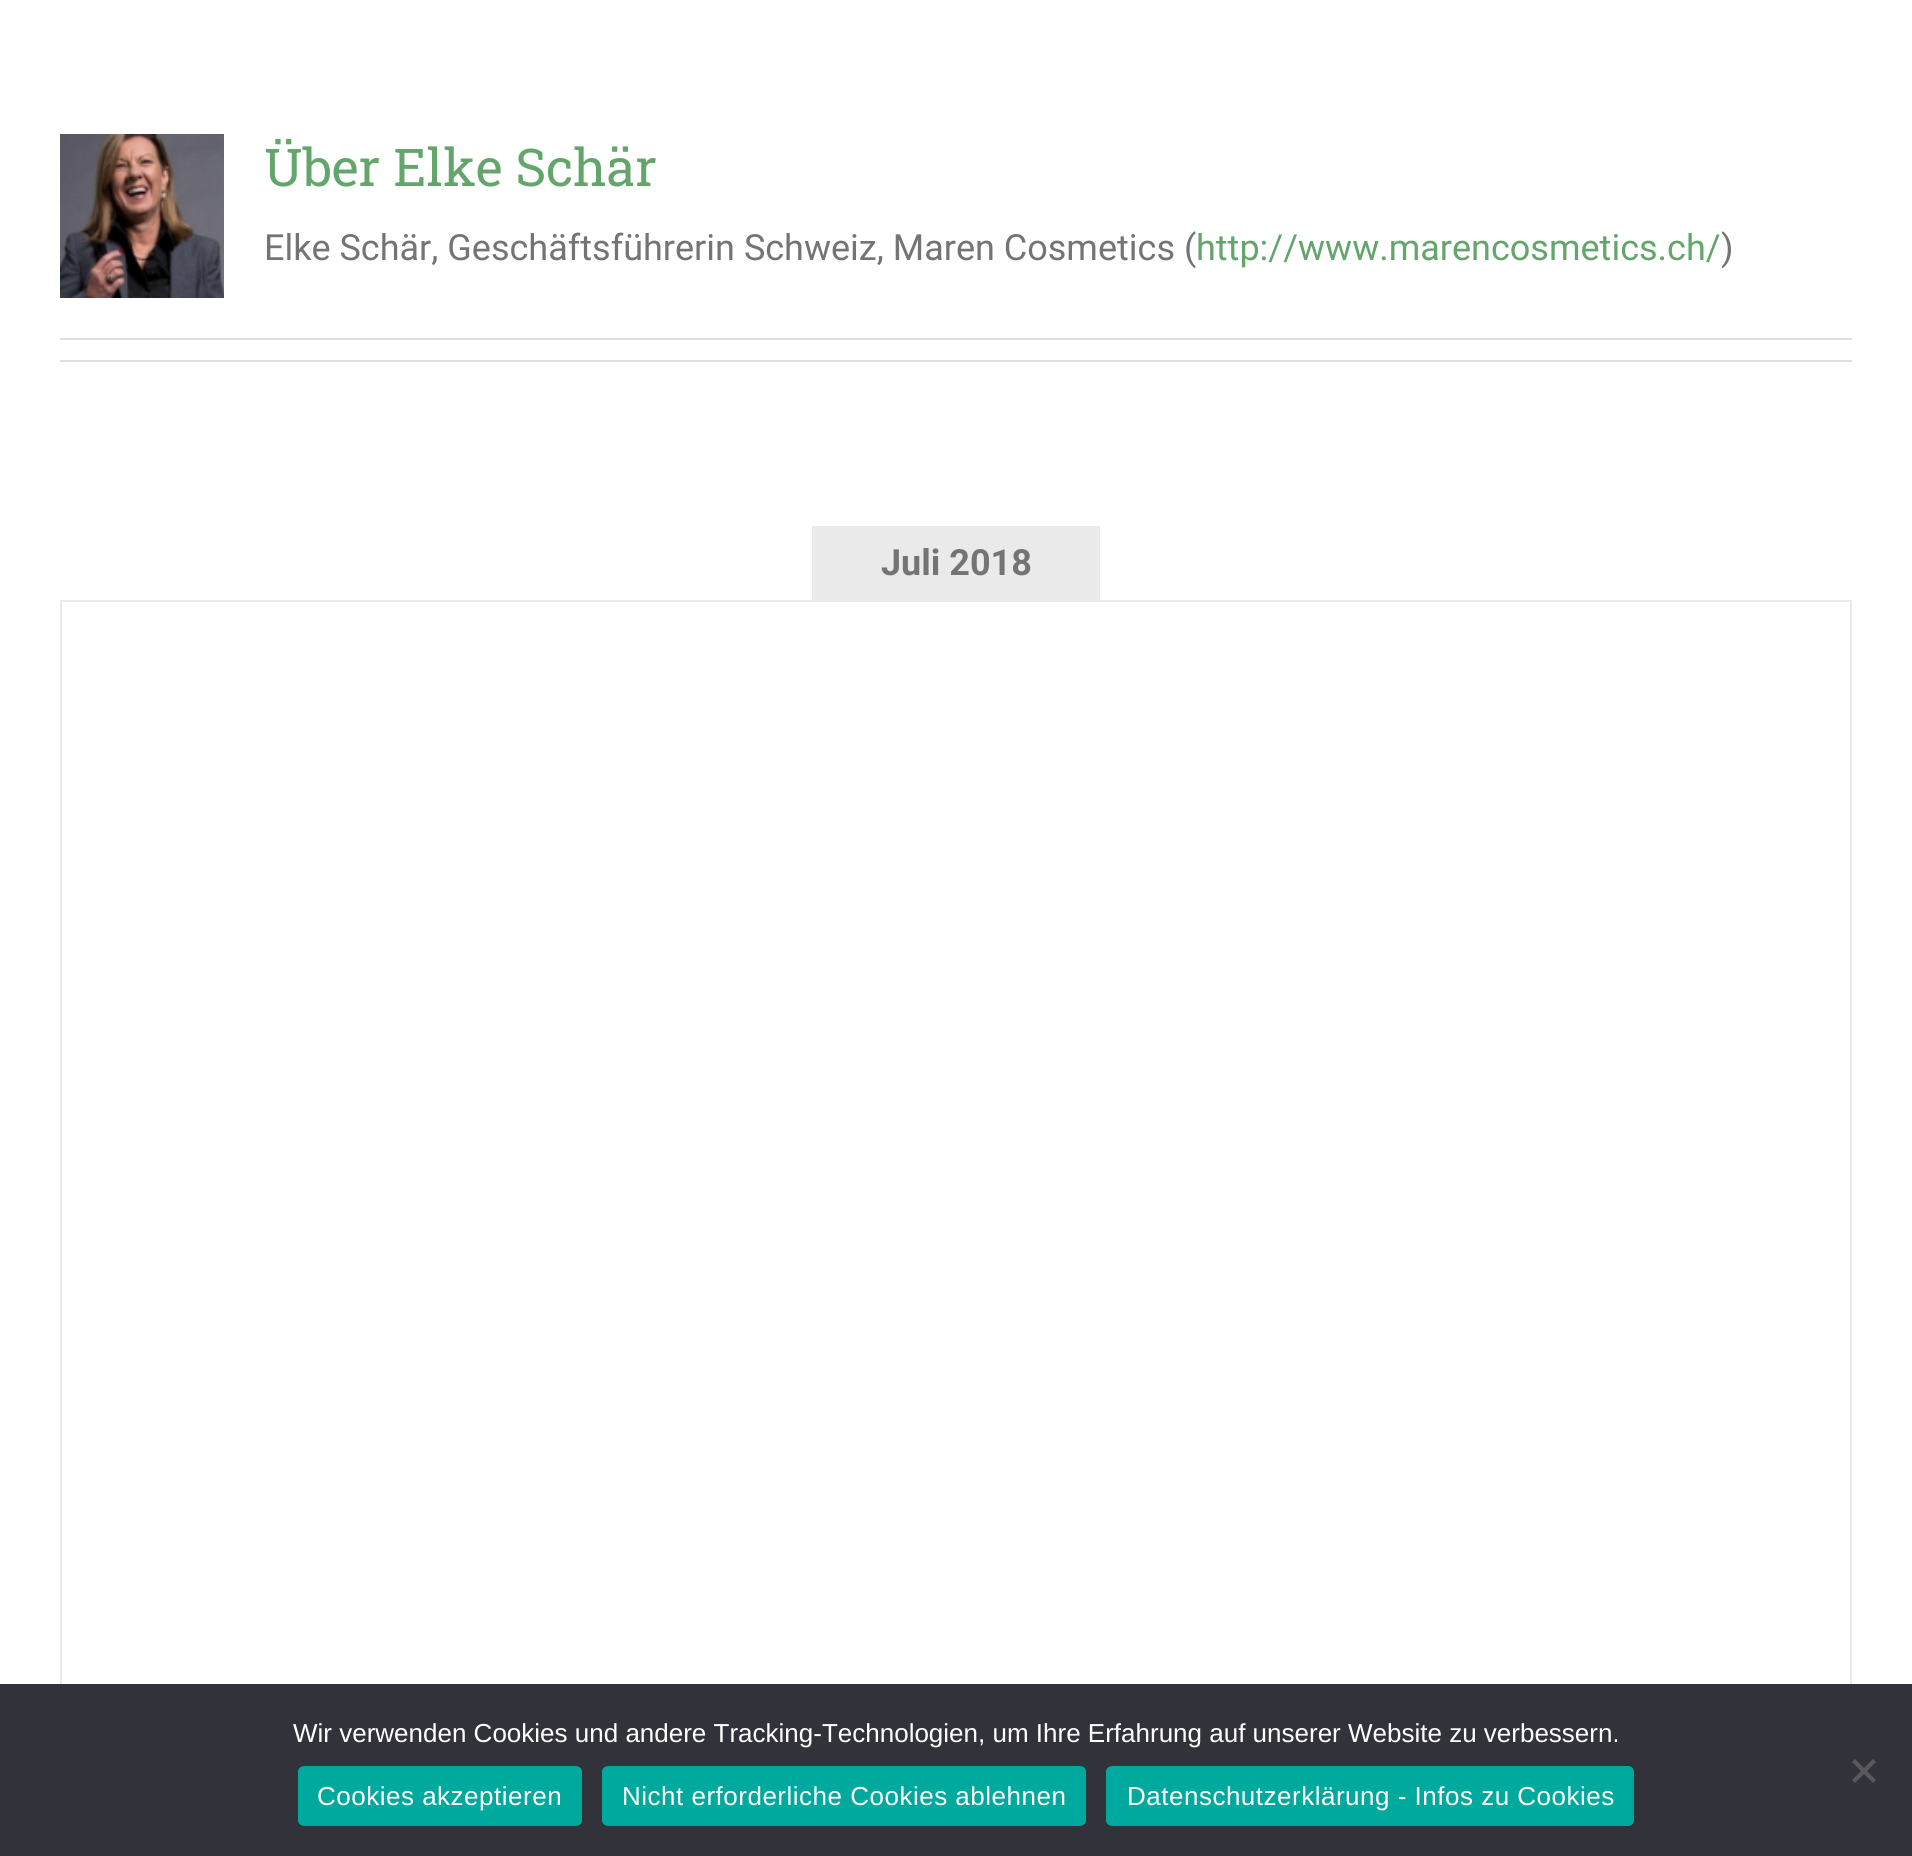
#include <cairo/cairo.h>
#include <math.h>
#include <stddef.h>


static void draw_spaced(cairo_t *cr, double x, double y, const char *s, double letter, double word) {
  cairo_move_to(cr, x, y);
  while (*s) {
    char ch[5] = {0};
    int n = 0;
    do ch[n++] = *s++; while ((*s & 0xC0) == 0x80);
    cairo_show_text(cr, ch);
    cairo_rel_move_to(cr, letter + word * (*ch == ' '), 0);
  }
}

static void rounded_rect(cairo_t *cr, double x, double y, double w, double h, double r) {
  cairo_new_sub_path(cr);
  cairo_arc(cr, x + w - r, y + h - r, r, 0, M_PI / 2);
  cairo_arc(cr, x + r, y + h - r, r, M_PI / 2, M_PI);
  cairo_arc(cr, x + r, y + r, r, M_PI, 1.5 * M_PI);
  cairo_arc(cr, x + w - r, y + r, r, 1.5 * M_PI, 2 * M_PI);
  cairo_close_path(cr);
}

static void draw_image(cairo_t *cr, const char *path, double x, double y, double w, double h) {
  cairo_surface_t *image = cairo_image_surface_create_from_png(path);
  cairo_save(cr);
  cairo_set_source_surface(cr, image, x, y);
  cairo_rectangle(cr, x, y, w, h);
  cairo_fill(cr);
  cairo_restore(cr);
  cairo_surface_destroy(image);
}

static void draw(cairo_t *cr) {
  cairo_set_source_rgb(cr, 1, 1, 1);
  cairo_paint(cr);
  draw_image(cr, "images/1.png", 60, 134, 164, 164);
  cairo_set_source_rgb(cr, 224 / 255.0, 222 / 255.0, 222 / 255.0);
  cairo_rectangle(cr, 60, 338, 1792, 2);
  cairo_fill(cr);
  cairo_rectangle(cr, 60, 360, 1792, 2);
  cairo_fill(cr);
  cairo_set_source_rgb(cr, 235 / 255.0, 234 / 255.0, 234 / 255.0);
  cairo_rectangle(cr, 812, 526, 288, 74);
  cairo_fill(cr);
  cairo_set_source_rgb(cr, 234 / 255.0, 234 / 255.0, 234 / 255.0);
  cairo_rectangle(cr, 60, 600, 1792, 2);
  cairo_fill(cr);
  cairo_rectangle(cr, 1850, 600, 2, 1084);
  cairo_fill(cr);
  cairo_rectangle(cr, 60, 600, 2, 1084);
  cairo_fill(cr);
  cairo_set_source_rgb(cr, 50 / 255.0, 50 / 255.0, 58 / 255.0);
  cairo_rectangle(cr, 0, 1684, 1912, 172);
  cairo_fill(cr);
  cairo_set_source_rgb(cr, 89 / 255.0, 89 / 255.0, 93 / 255.0);
  cairo_new_path(cr);
  cairo_move_to(cr, 1873, 1759);
  cairo_line_to(cr, 1876, 1762);
  cairo_line_to(cr, 1855, 1783);
  cairo_line_to(cr, 1852, 1780);
  cairo_close_path(cr);
  cairo_fill(cr);
  cairo_new_path(cr);
  cairo_move_to(cr, 1852, 1762);
  cairo_line_to(cr, 1855, 1759);
  cairo_line_to(cr, 1876, 1780);
  cairo_line_to(cr, 1873, 1783);
  cairo_close_path(cr);
  cairo_fill(cr);
  cairo_set_source_rgb(cr, 0, 169 / 255.0, 157 / 255.0);
  rounded_rect(cr, 298, 1766, 284, 60, 6);
  cairo_fill(cr);
  rounded_rect(cr, 602, 1766, 484, 60, 6);
  cairo_fill(cr);
  rounded_rect(cr, 1106, 1766, 528, 60, 6);
  cairo_fill(cr);
  cairo_select_font_face(cr, "Roboto Slab", CAIRO_FONT_SLANT_NORMAL, CAIRO_FONT_WEIGHT_NORMAL);
  cairo_set_font_size(cr, 52);
  cairo_set_source_rgb(cr, 99 / 255.0, 165 / 255.0, 107 / 255.0);
  cairo_move_to(cr, 264, 186);
  cairo_show_text(cr, "Über Elke Schär");
  cairo_select_font_face(cr, "Roboto", CAIRO_FONT_SLANT_NORMAL, CAIRO_FONT_WEIGHT_NORMAL);
  cairo_set_font_size(cr, 36);
  cairo_set_source_rgb(cr, 116 / 255.0, 116 / 255.0, 116 / 255.0);
  cairo_move_to(cr, 264, 260);
  cairo_show_text(cr, "Elke Schär, Geschäftsführerin Schweiz, Maren Cosmetics (");
  cairo_set_source_rgb(cr, 99 / 255.0, 165 / 255.0, 107 / 255.0);
  cairo_move_to(cr, 1196, 260);
  cairo_show_text(cr, "http://www.marencosmetics.ch/");
  cairo_set_source_rgb(cr, 116 / 255.0, 116 / 255.0, 116 / 255.0);
  cairo_move_to(cr, 1721, 260);
  cairo_show_text(cr, ")");
  cairo_select_font_face(cr, "Roboto", CAIRO_FONT_SLANT_NORMAL, CAIRO_FONT_WEIGHT_BOLD);
  cairo_move_to(cr, 881, 575);
  cairo_show_text(cr, "Juli 2018");
  cairo_select_font_face(cr, "Liberation Sans", CAIRO_FONT_SLANT_NORMAL, CAIRO_FONT_WEIGHT_NORMAL);
  cairo_set_font_size(cr, 26);
  cairo_set_source_rgb(cr, 1, 1, 1);
  cairo_move_to(cr, 293, 1742);
  cairo_show_text(cr, "Wir verwenden Cookies und andere Tracking-Technologien, um Ihre Erfahrung auf unserer Website zu verbessern.");
  draw_spaced(cr, 317, 1805, "Cookies akzeptieren", 0.5, 0);
  draw_spaced(cr, 622, 1805, "Nicht erforderliche Cookies ablehnen", 0.5, 0);
  draw_spaced(cr, 1127, 1805, "Datenschutzerklärung - Infos zu Cookies", 0.5, 0);
}

int main(void) {
  cairo_surface_t *surface = cairo_image_surface_create(CAIRO_FORMAT_RGB24, 1912, 1856);
  cairo_t *cr = cairo_create(surface);
  cairo_font_options_t *options = cairo_font_options_create();
  cairo_font_options_set_hint_metrics(options, CAIRO_HINT_METRICS_OFF);
  cairo_font_options_set_hint_style(options, CAIRO_HINT_STYLE_NONE);
  cairo_set_font_options(cr, options);
  cairo_set_miter_limit(cr, 4);
  draw(cr);
  cairo_surface_write_to_png(surface, "out.png");
  cairo_font_options_destroy(options);
  cairo_destroy(cr);
  cairo_surface_destroy(surface);
  return 0;
}
